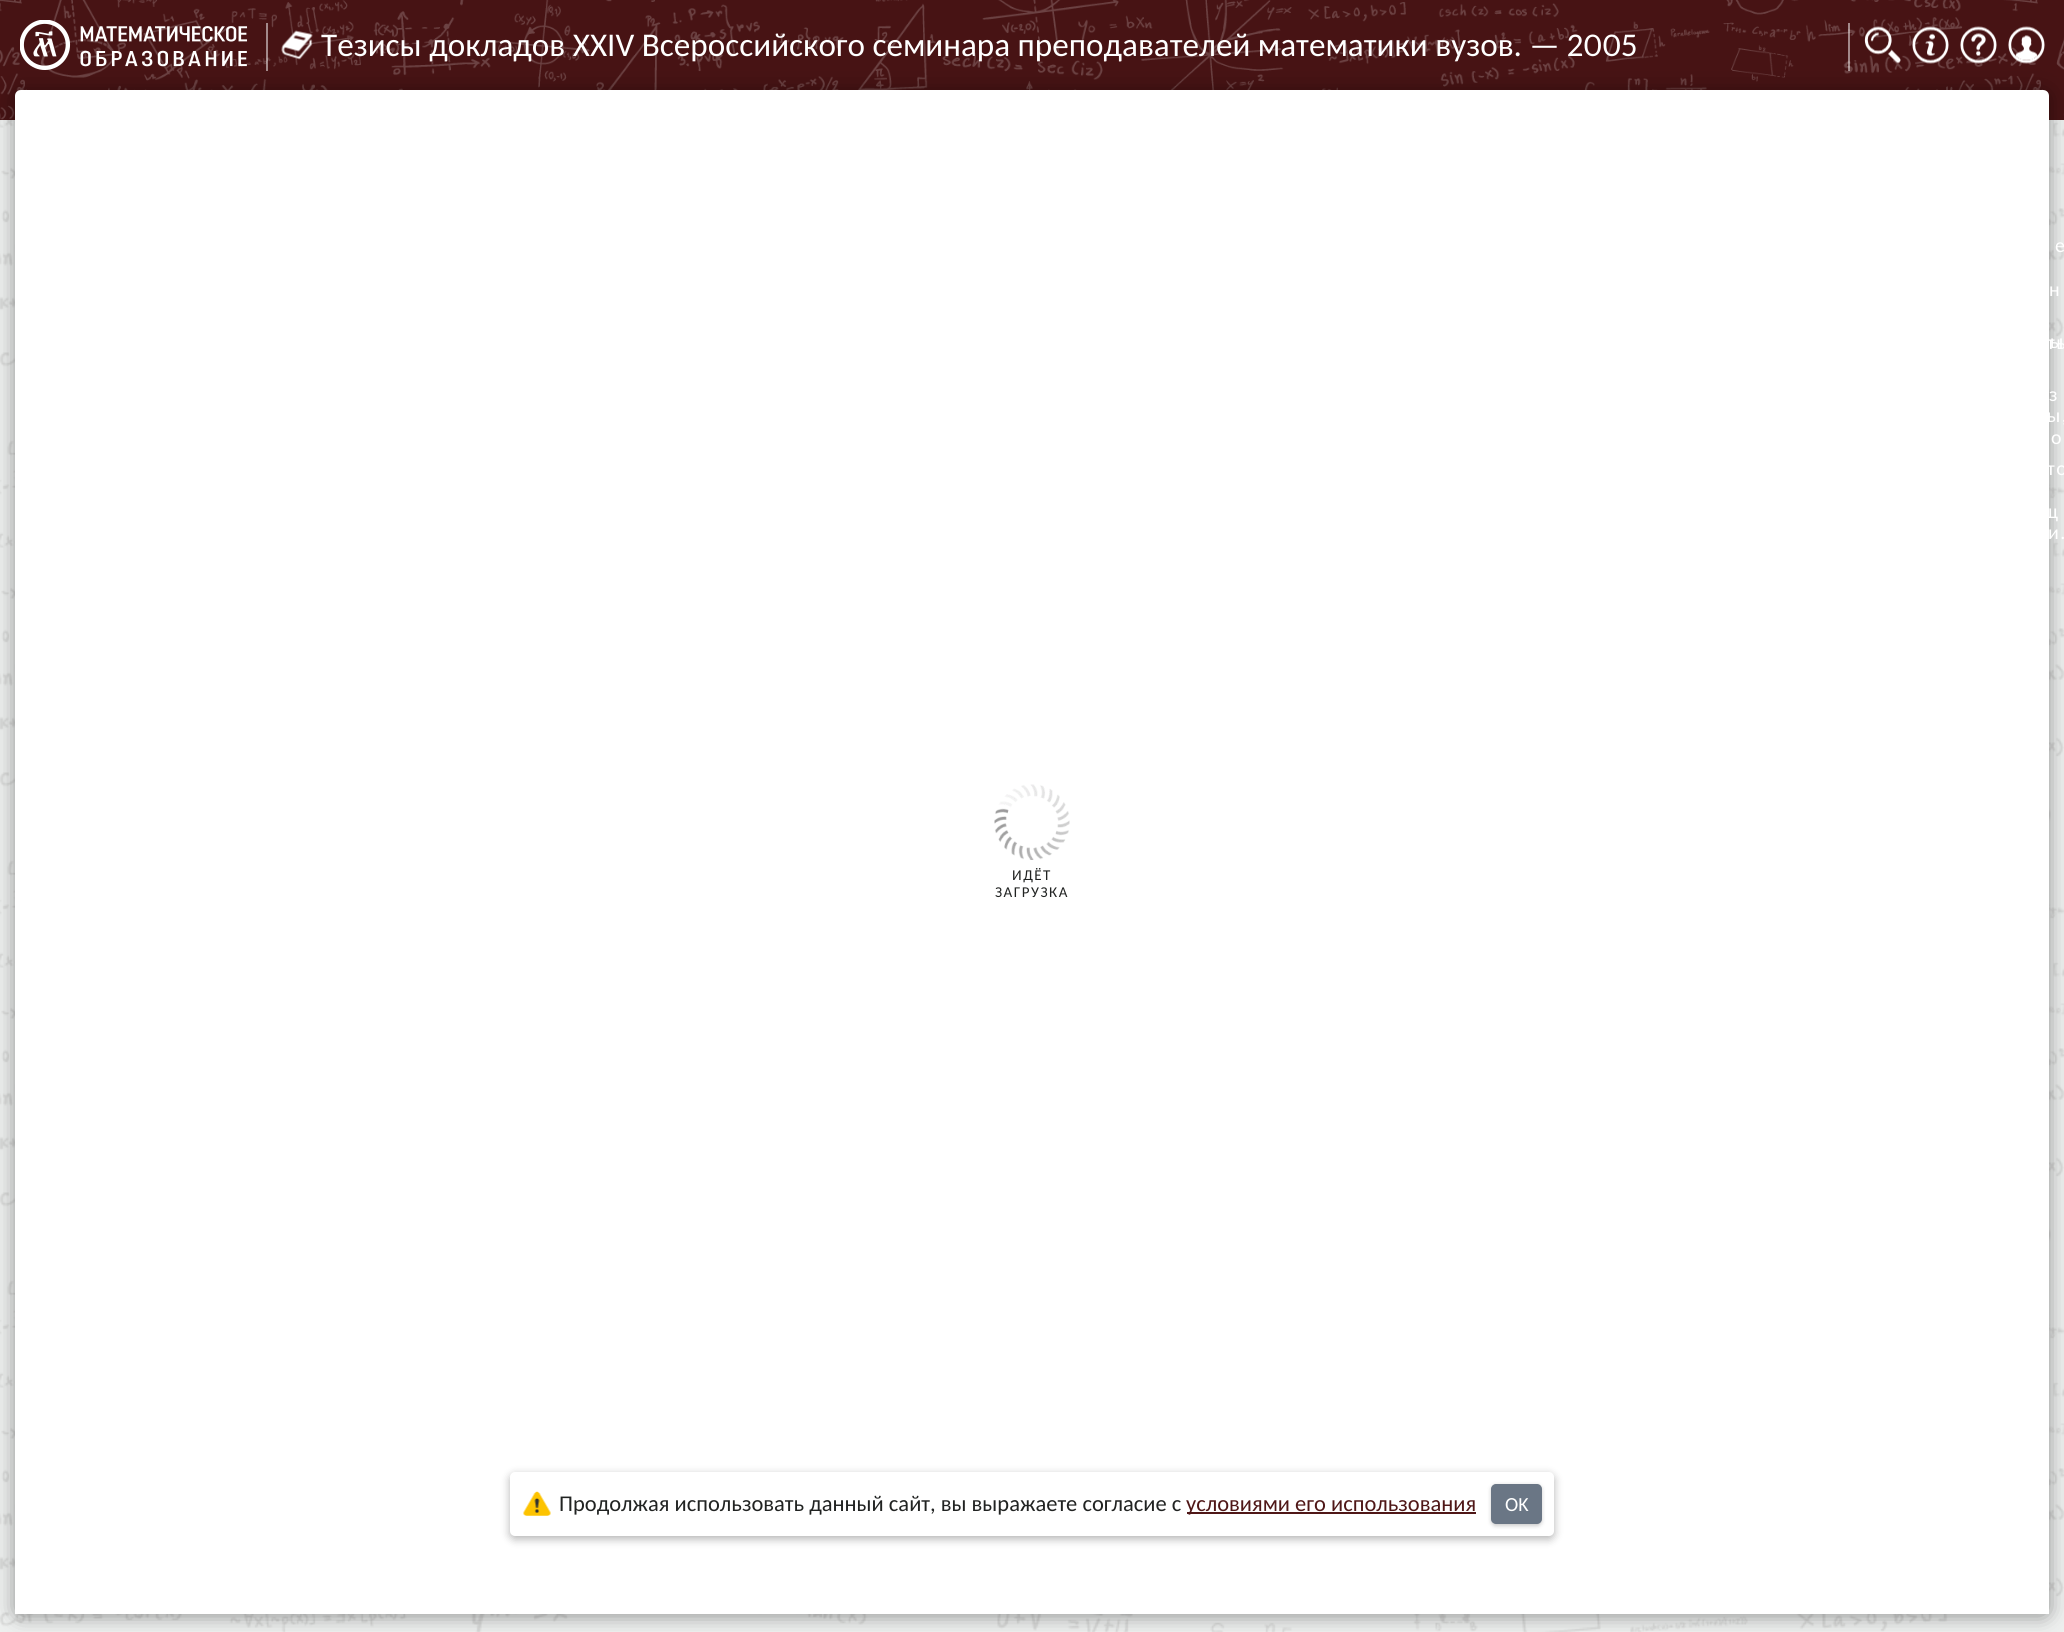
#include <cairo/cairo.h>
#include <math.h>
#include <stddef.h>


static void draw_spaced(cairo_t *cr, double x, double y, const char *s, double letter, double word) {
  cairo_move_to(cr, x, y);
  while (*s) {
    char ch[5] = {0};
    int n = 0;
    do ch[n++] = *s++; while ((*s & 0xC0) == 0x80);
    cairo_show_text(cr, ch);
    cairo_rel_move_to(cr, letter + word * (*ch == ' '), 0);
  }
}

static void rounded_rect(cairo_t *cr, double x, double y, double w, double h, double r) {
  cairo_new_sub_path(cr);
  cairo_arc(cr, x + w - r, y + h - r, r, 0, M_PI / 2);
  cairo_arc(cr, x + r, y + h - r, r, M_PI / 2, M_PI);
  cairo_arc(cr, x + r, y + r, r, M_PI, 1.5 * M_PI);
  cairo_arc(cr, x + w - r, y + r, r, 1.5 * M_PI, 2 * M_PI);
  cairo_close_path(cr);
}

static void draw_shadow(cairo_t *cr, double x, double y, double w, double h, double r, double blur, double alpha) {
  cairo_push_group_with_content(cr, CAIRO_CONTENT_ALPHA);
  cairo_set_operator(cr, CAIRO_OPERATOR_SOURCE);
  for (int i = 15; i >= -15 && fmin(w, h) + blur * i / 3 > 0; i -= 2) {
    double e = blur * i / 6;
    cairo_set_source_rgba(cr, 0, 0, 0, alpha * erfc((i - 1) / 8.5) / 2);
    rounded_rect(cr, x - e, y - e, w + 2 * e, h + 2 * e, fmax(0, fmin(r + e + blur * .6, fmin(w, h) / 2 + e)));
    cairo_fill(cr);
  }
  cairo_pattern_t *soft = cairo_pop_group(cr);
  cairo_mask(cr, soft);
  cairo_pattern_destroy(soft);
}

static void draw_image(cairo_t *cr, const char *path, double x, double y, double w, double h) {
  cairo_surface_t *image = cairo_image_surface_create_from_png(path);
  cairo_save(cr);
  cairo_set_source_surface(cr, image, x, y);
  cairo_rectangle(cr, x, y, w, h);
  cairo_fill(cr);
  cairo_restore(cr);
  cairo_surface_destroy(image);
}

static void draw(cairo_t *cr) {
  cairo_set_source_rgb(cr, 1, 1, 1);
  cairo_paint(cr);
  draw_image(cr, "images/1.png", 0, 120, 2064, 1512);
  draw_image(cr, "images/2.png", 0, 0, 2064, 120);
  draw_image(cr, "images/3.png", 20, 20, 228, 50);
  cairo_set_source_rgba(cr, 1, 1, 1, 0.5);
  cairo_rectangle(cr, 1848, 23, 2, 48);
  cairo_fill(cr);
  cairo_rectangle(cr, 266, 23, 2, 48);
  cairo_fill(cr);
  draw_image(cr, "images/4.png", 281, 30, 32, 30);
  draw_image(cr, "images/5.png", 1864, 26, 37, 38);
  draw_image(cr, "images/6.png", 1912, 26, 37, 38);
  draw_image(cr, "images/7.png", 1960, 26, 37, 38);
  cairo_set_source_rgb(cr, 0, 0, 0);
  draw_shadow(cr, 15, 92, 2034, 1524, 6, 10, 0.4);
  draw_image(cr, "images/8.png", 2008, 26, 37, 38);
  cairo_set_source_rgb(cr, 1, 1, 1);
  cairo_new_path(cr);
  cairo_move_to(cr, 21, 90);
  cairo_line_to(cr, 2043, 90);
  cairo_curve_to(cr, 2046.5, 90, 2049, 92.5, 2049, 96);
  cairo_line_to(cr, 2049, 1614);
  cairo_line_to(cr, 15, 1614);
  cairo_line_to(cr, 15, 96);
  cairo_curve_to(cr, 15, 92.5, 17.5, 90, 21, 90);
  cairo_close_path(cr);
  cairo_fill(cr);
  draw_image(cr, "images/9.png", 994, 784, 76, 76);
  cairo_set_source_rgb(cr, 0, 0, 0);
  draw_shadow(cr, 510, 1475, 1044, 64, 5, 4.5, 0.3);
  cairo_set_source_rgb(cr, 1, 1, 1);
  rounded_rect(cr, 510, 1472, 1044, 64, 5);
  cairo_fill(cr);
  draw_image(cr, "images/10.png", 523, 1491, 28, 25);
  cairo_set_source_rgb(cr, 79 / 255.0, 23 / 255.0, 23 / 255.0);
  cairo_rectangle(cr, 1187, 1512, 289, 2);
  cairo_fill(cr);
  cairo_set_source_rgb(cr, 0, 0, 0);
  draw_shadow(cr, 1491, 1485, 51, 41, 5, 2, 0.2);
  cairo_set_source_rgb(cr, 106 / 255.0, 118 / 255.0, 133 / 255.0);
  rounded_rect(cr, 1492, 1485, 49, 38, 4);
  cairo_fill_preserve(cr);
  cairo_stroke(cr);
  cairo_select_font_face(cr, "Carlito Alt", CAIRO_FONT_SLANT_NORMAL, CAIRO_FONT_WEIGHT_NORMAL);
  cairo_set_font_size(cr, 33.15);
  cairo_set_source_rgb(cr, 1, 1, 1);
  cairo_move_to(cr, 321, 56);
  cairo_show_text(cr, "Тезисы докладов XXIV Всероссийского семинара преподавателей математики вузов. — 2005");
  cairo_select_font_face(cr, "Carlito", CAIRO_FONT_SLANT_NORMAL, CAIRO_FONT_WEIGHT_NORMAL);
  cairo_set_font_size(cr, 20);
  draw_spaced(cr, 2055, 252, "е", 1.5, 0);
  draw_spaced(cr, 2050, 348, "ы", 1.5, 0);
  draw_spaced(cr, 2049, 401, "з", 1.5, 0);
  draw_spaced(cr, 2047, 422, "ы,", 1.5, 0);
  draw_spaced(cr, 2051, 444, "о", 1.5, 0);
  draw_spaced(cr, 2047, 475, "то", 1.5, 0);
  draw_spaced(cr, 2043, 518, "щ", 1.5, 0);
  draw_spaced(cr, 2048, 539, "и.", 1.5, 0);
  draw_spaced(cr, 2049, 296, "н", 1.5, 0);
  draw_spaced(cr, 2047, 349, "ть", 1.5, 0);
  cairo_set_font_size(cr, 15);
  cairo_set_source_rgb(cr, 33 / 255.0, 35 / 255.0, 34 / 255.0);
  draw_spaced(cr, 1012, 880, "ИДЁТ", 1.5, 0);
  draw_spaced(cr, 995, 897, "ЗАГРУЗКА", 1.5, 0);
  cairo_set_font_size(cr, 22.5);
  cairo_move_to(cr, 559, 1511);
  cairo_show_text(cr, "Продолжая использовать данный сайт, вы выражаете согласие с");
  cairo_set_source_rgb(cr, 79 / 255.0, 23 / 255.0, 23 / 255.0);
  cairo_move_to(cr, 1186, 1511);
  cairo_show_text(cr, "условиями его использования");
  cairo_set_font_size(cr, 20);
  cairo_set_source_rgb(cr, 1, 1, 1);
  cairo_move_to(cr, 1505, 1511);
  cairo_show_text(cr, "OK");
}

int main(void) {
  cairo_surface_t *surface = cairo_image_surface_create(CAIRO_FORMAT_RGB24, 2064, 1632);
  cairo_t *cr = cairo_create(surface);
  cairo_font_options_t *options = cairo_font_options_create();
  cairo_font_options_set_hint_metrics(options, CAIRO_HINT_METRICS_OFF);
  cairo_font_options_set_hint_style(options, CAIRO_HINT_STYLE_NONE);
  cairo_set_font_options(cr, options);
  cairo_set_miter_limit(cr, 4);
  draw(cr);
  cairo_surface_write_to_png(surface, "out.png");
  cairo_font_options_destroy(options);
  cairo_destroy(cr);
  cairo_surface_destroy(surface);
  return 0;
}
